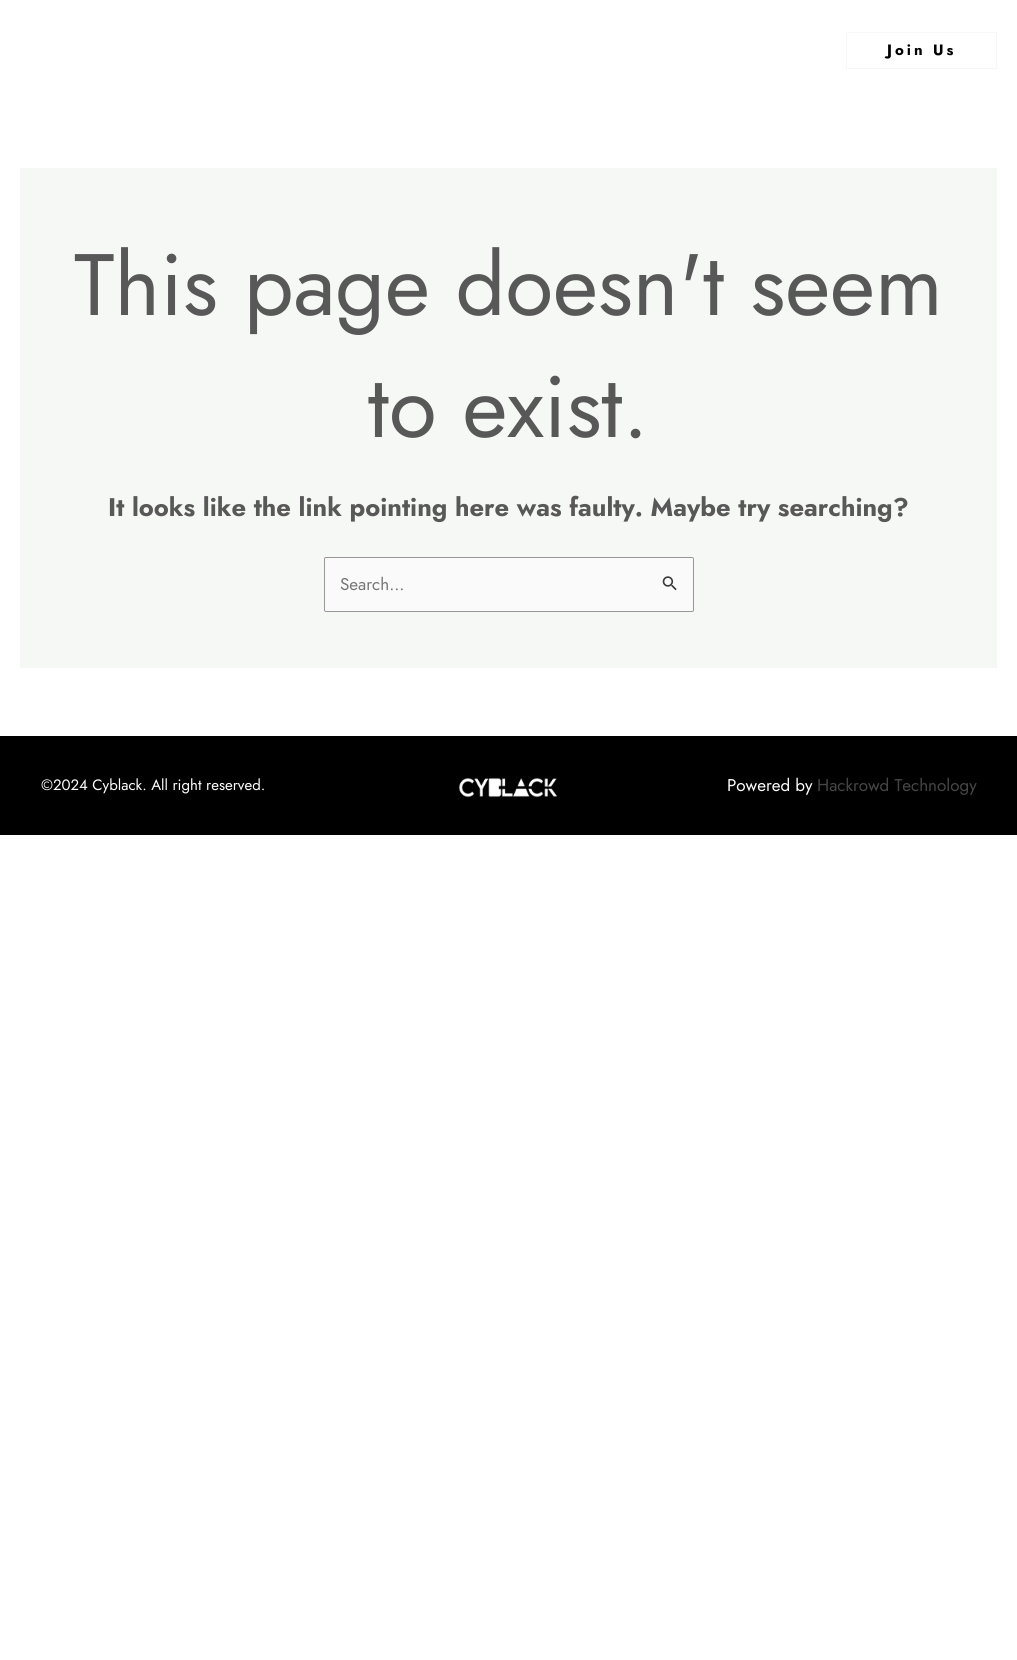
#include <cairo/cairo.h>
#include <math.h>
#include <stddef.h>


static void draw_spaced(cairo_t *cr, double x, double y, const char *s, double letter, double word) {
  cairo_move_to(cr, x, y);
  while (*s) {
    char ch[5] = {0};
    int n = 0;
    do ch[n++] = *s++; while ((*s & 0xC0) == 0x80);
    cairo_show_text(cr, ch);
    cairo_rel_move_to(cr, letter + word * (*ch == ' '), 0);
  }
}

static void rounded_rect(cairo_t *cr, double x, double y, double w, double h, double r) {
  cairo_new_sub_path(cr);
  cairo_arc(cr, x + w - r, y + h - r, r, 0, M_PI / 2);
  cairo_arc(cr, x + r, y + h - r, r, M_PI / 2, M_PI);
  cairo_arc(cr, x + r, y + r, r, M_PI, 1.5 * M_PI);
  cairo_arc(cr, x + w - r, y + r, r, 1.5 * M_PI, 2 * M_PI);
  cairo_close_path(cr);
}

static void draw_image(cairo_t *cr, const char *path, double x, double y, double w, double h) {
  cairo_surface_t *image = cairo_image_surface_create_from_png(path);
  cairo_save(cr);
  cairo_set_source_surface(cr, image, x, y);
  cairo_rectangle(cr, x, y, w, h);
  cairo_fill(cr);
  cairo_restore(cr);
  cairo_surface_destroy(image);
}

static void draw(cairo_t *cr) {
  cairo_set_source_rgb(cr, 1, 1, 1);
  cairo_paint(cr);
  cairo_rectangle(cr, 846.5, 32.5, 150, 36);
  cairo_set_source_rgb(cr, 246 / 255.0, 248 / 255.0, 245 / 255.0);
  cairo_set_line_width(cr, 1);
  cairo_stroke(cr);
  cairo_rectangle(cr, 20, 168, 977, 500);
  cairo_fill(cr);
  cairo_set_source_rgb(cr, 250 / 255.0, 250 / 255.0, 250 / 255.0);
  rounded_rect(cr, 324.5, 557.5, 369, 54, 1.5);
  cairo_fill_preserve(cr);
  cairo_set_source_rgb(cr, 152 / 255.0, 152 / 255.0, 152 / 255.0);
  cairo_stroke(cr);
  draw_image(cr, "images/1.png", 662, 576, 15, 15);
  cairo_set_source_rgb(cr, 0, 0, 0);
  cairo_rectangle(cr, 0, 736, 1017, 99);
  cairo_fill(cr);
  draw_image(cr, "images/2.png", 458, 777, 100, 21);
  cairo_select_font_face(cr, "Jost", CAIRO_FONT_SLANT_NORMAL, CAIRO_FONT_WEIGHT_BOLD);
  cairo_set_font_size(cr, 15);
  draw_spaced(cr, 887, 55, "Join Us", 3, 0);
  cairo_select_font_face(cr, "Jost", CAIRO_FONT_SLANT_NORMAL, CAIRO_FONT_WEIGHT_NORMAL);
  cairo_set_font_size(cr, 87);
  cairo_set_source_rgb(cr, 88 / 255.0, 88 / 255.0, 88 / 255.0);
  cairo_move_to(cr, 74, 315);
  cairo_show_text(cr, "This page doesn't seem");
  cairo_move_to(cr, 368, 437);
  cairo_show_text(cr, "to exist.");
  cairo_select_font_face(cr, "Jost", CAIRO_FONT_SLANT_NORMAL, CAIRO_FONT_WEIGHT_BOLD);
  cairo_set_font_size(cr, 25.5);
  cairo_move_to(cr, 108, 516);
  cairo_show_text(cr, "It looks like the link pointing here was faulty. Maybe try searching?");
  cairo_select_font_face(cr, "Jost", CAIRO_FONT_SLANT_NORMAL, CAIRO_FONT_WEIGHT_NORMAL);
  cairo_set_font_size(cr, 17);
  cairo_set_source_rgb(cr, 117 / 255.0, 117 / 255.0, 117 / 255.0);
  cairo_move_to(cr, 340, 590);
  cairo_show_text(cr, "Search...");
  cairo_set_font_size(cr, 15);
  cairo_set_source_rgb(cr, 1, 254 / 255.0, 254 / 255.0);
  cairo_move_to(cr, 41, 790);
  cairo_show_text(cr, "©2024 Cyblack. All right reserved.");
  cairo_set_font_size(cr, 17);
  cairo_move_to(cr, 727, 791);
  cairo_show_text(cr, "Powered by");
  cairo_set_source_rgb(cr, 70 / 255.0, 70 / 255.0, 70 / 255.0);
  cairo_move_to(cr, 817, 791);
  cairo_show_text(cr, "Hackrowd Technology");
}

int main(void) {
  cairo_surface_t *surface = cairo_image_surface_create(CAIRO_FORMAT_RGB24, 1017, 1660);
  cairo_t *cr = cairo_create(surface);
  cairo_font_options_t *options = cairo_font_options_create();
  cairo_font_options_set_hint_metrics(options, CAIRO_HINT_METRICS_OFF);
  cairo_font_options_set_hint_style(options, CAIRO_HINT_STYLE_NONE);
  cairo_set_font_options(cr, options);
  cairo_set_miter_limit(cr, 4);
  draw(cr);
  cairo_surface_write_to_png(surface, "out.png");
  cairo_font_options_destroy(options);
  cairo_destroy(cr);
  cairo_surface_destroy(surface);
  return 0;
}
